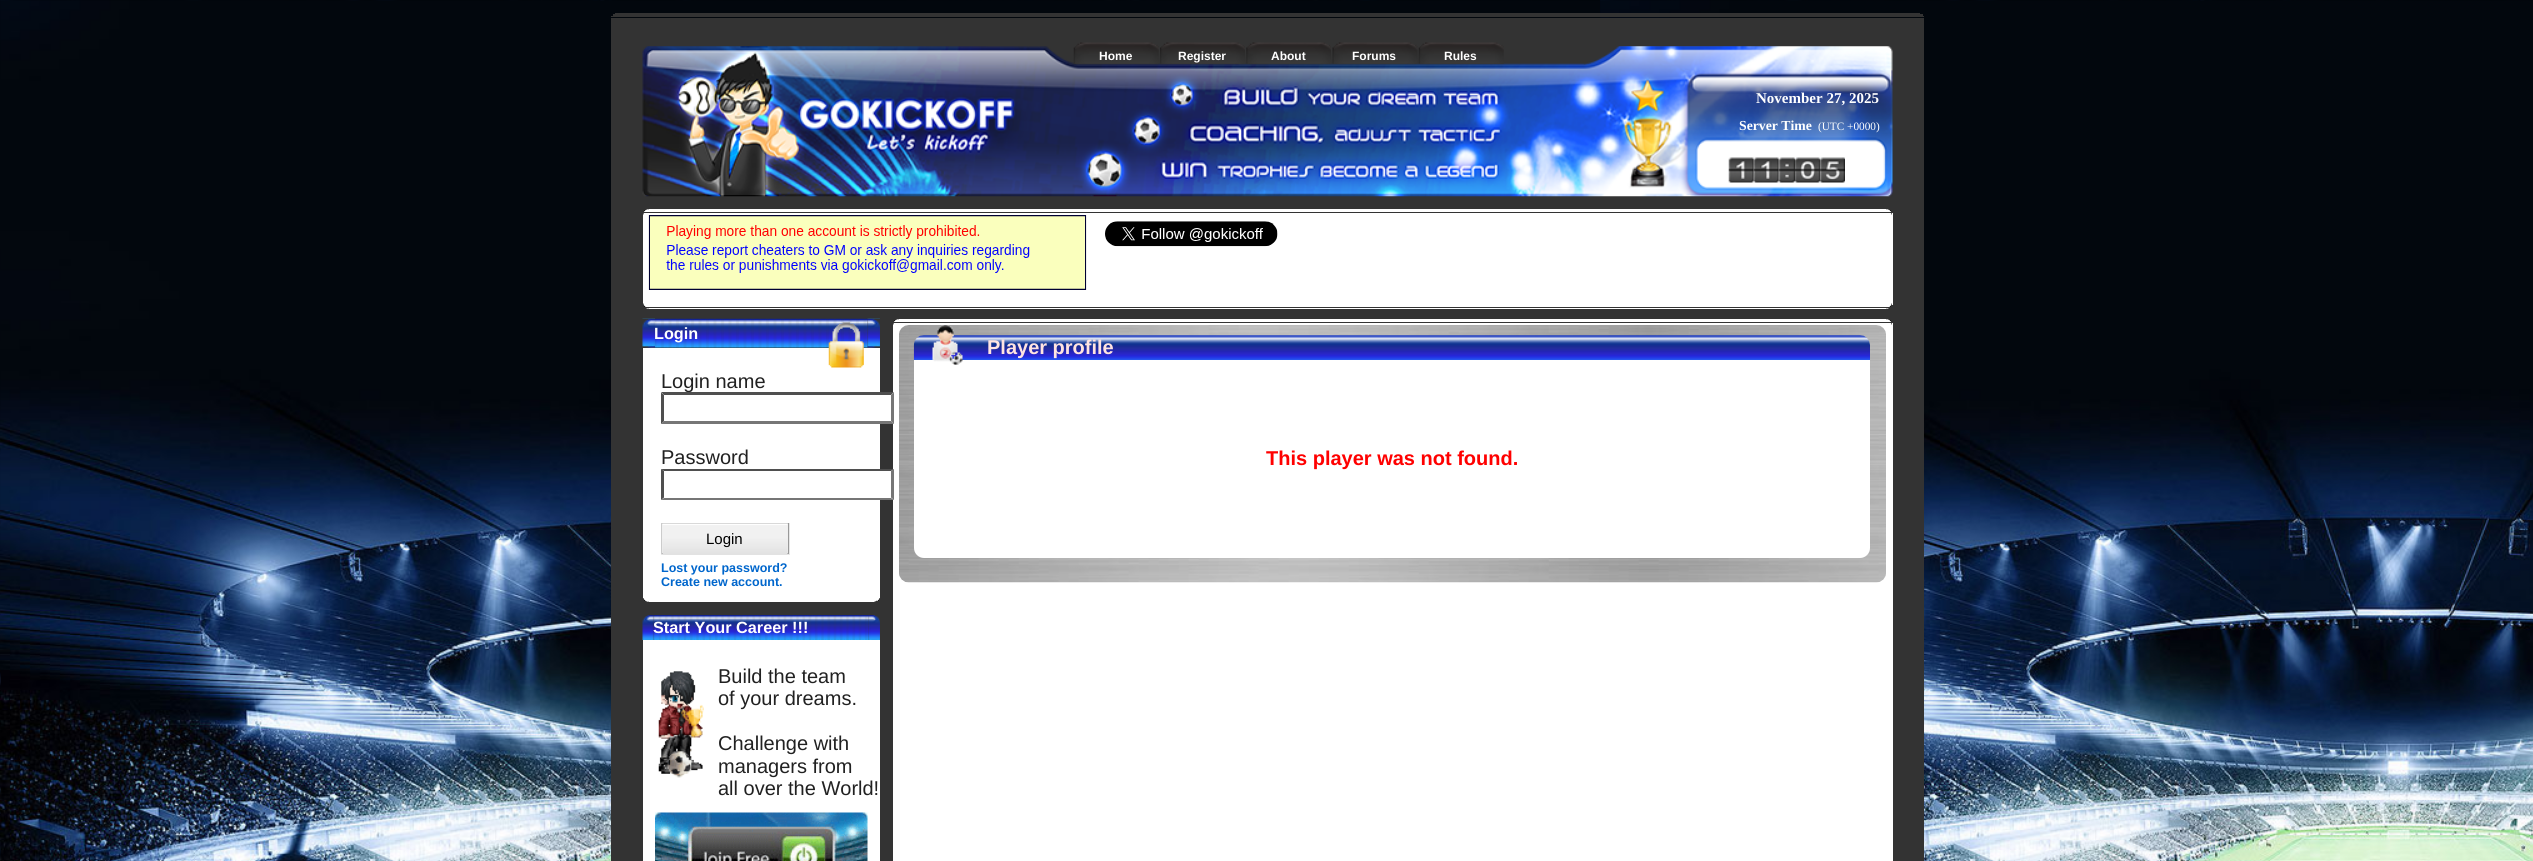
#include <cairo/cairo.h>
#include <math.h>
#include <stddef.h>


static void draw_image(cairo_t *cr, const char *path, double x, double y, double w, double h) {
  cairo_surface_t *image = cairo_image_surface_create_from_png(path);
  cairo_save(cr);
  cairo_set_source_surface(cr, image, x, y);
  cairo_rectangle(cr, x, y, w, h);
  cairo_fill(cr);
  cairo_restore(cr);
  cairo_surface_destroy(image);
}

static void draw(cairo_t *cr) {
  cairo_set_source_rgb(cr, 1, 1, 1);
  cairo_paint(cr);
  draw_image(cr, "images/1.png", 0, 0, 2533, 861);
  cairo_set_source_rgb(cr, 51 / 255.0, 51 / 255.0, 51 / 255.0);
  cairo_rectangle(cr, 615, 13, 1305, 1);
  cairo_fill(cr);
  cairo_rectangle(cr, 613, 14, 1310, 2);
  cairo_fill(cr);
  cairo_rectangle(cr, 611, 16, 1313, 1);
  cairo_fill(cr);
  cairo_rectangle(cr, 611, 18, 1313, 843);
  cairo_fill(cr);
  draw_image(cr, "images/2.png", 642, 46, 1251, 151);
  draw_image(cr, "images/3.png", 1073, 42, 86, 22);
  draw_image(cr, "images/4.png", 1160, 42, 85, 22);
  draw_image(cr, "images/5.png", 1246, 42, 85, 22);
  draw_image(cr, "images/6.png", 1332, 42, 86, 22);
  draw_image(cr, "images/7.png", 1418, 42, 86, 22);
  draw_image(cr, "images/8.png", 1728, 157, 26, 26);
  draw_image(cr, "images/9.png", 1753, 157, 26, 26);
  draw_image(cr, "images/10.png", 1778, 157, 17, 26);
  draw_image(cr, "images/11.png", 1795, 157, 25, 26);
  draw_image(cr, "images/12.png", 1820, 157, 25, 26);
  cairo_set_source_rgb(cr, 191 / 255.0, 191 / 255.0, 191 / 255.0);
  cairo_rectangle(cr, 646, 209, 1243, 1);
  cairo_fill(cr);
  cairo_set_source_rgb(cr, 109 / 255.0, 109 / 255.0, 109 / 255.0);
  cairo_rectangle(cr, 1888, 209, 1, 1);
  cairo_fill(cr);
  cairo_rectangle(cr, 646, 209, 1, 1);
  cairo_fill(cr);
  cairo_set_source_rgb(cr, 1, 1, 1);
  cairo_rectangle(cr, 649, 209, 1237, 1);
  cairo_fill(cr);
  cairo_set_source_rgb(cr, 206 / 255.0, 206 / 255.0, 206 / 255.0);
  cairo_rectangle(cr, 644, 210, 1247, 1);
  cairo_fill(cr);
  cairo_set_source_rgb(cr, 25 / 255.0, 25 / 255.0, 25 / 255.0);
  cairo_rectangle(cr, 1890, 210, 1, 1);
  cairo_fill(cr);
  cairo_rectangle(cr, 644, 210, 1, 1);
  cairo_fill(cr);
  cairo_set_source_rgb(cr, 1, 1, 1);
  cairo_rectangle(cr, 646, 210, 1243, 1);
  cairo_fill(cr);
  cairo_rectangle(cr, 644, 211, 1247, 1);
  cairo_fill(cr);
  cairo_set_source_rgb(cr, 206 / 255.0, 206 / 255.0, 206 / 255.0);
  cairo_rectangle(cr, 1890, 211, 1, 1);
  cairo_fill(cr);
  cairo_rectangle(cr, 644, 211, 1, 1);
  cairo_fill(cr);
  cairo_set_source_rgb(cr, 1, 1, 1);
  cairo_rectangle(cr, 643, 213, 1250, 2);
  cairo_fill(cr);
  cairo_set_source_rgb(cr, 109 / 255.0, 109 / 255.0, 109 / 255.0);
  cairo_rectangle(cr, 1891, 213, 1, 1);
  cairo_fill(cr);
  cairo_rectangle(cr, 643, 213, 1, 1);
  cairo_fill(cr);
  cairo_set_source_rgb(cr, 191 / 255.0, 191 / 255.0, 191 / 255.0);
  cairo_rectangle(cr, 1891, 214, 1, 1);
  cairo_fill(cr);
  cairo_rectangle(cr, 643, 214, 1, 1);
  cairo_fill(cr);
  cairo_set_source_rgb(cr, 1, 1, 1);
  cairo_rectangle(cr, 643, 215, 1250, 90);
  cairo_fill(cr);
  draw_image(cr, "images/13.png", 648, 215, 439, 75);
  draw_image(cr, "images/14.png", 1105, 221, 173, 26);
  cairo_set_source_rgb(cr, 191 / 255.0, 191 / 255.0, 191 / 255.0);
  cairo_rectangle(cr, 1891, 303, 1, 1);
  cairo_fill(cr);
  cairo_rectangle(cr, 643, 303, 1, 1);
  cairo_fill(cr);
  cairo_set_source_rgb(cr, 109 / 255.0, 109 / 255.0, 109 / 255.0);
  cairo_rectangle(cr, 1891, 304, 1, 1);
  cairo_fill(cr);
  cairo_rectangle(cr, 643, 304, 1, 1);
  cairo_fill(cr);
  cairo_set_source_rgb(cr, 1, 1, 1);
  cairo_rectangle(cr, 644, 305, 1247, 1);
  cairo_fill(cr);
  cairo_set_source_rgb(cr, 206 / 255.0, 206 / 255.0, 206 / 255.0);
  cairo_rectangle(cr, 1890, 305, 1, 1);
  cairo_fill(cr);
  cairo_rectangle(cr, 644, 305, 1, 1);
  cairo_fill(cr);
  cairo_rectangle(cr, 644, 306, 1247, 1);
  cairo_fill(cr);
  cairo_set_source_rgb(cr, 25 / 255.0, 25 / 255.0, 25 / 255.0);
  cairo_rectangle(cr, 1890, 306, 1, 1);
  cairo_fill(cr);
  cairo_rectangle(cr, 644, 306, 1, 1);
  cairo_fill(cr);
  cairo_set_source_rgb(cr, 1, 1, 1);
  cairo_rectangle(cr, 646, 306, 1243, 1);
  cairo_fill(cr);
  cairo_set_source_rgb(cr, 191 / 255.0, 191 / 255.0, 191 / 255.0);
  cairo_rectangle(cr, 646, 308, 1243, 1);
  cairo_fill(cr);
  cairo_set_source_rgb(cr, 109 / 255.0, 109 / 255.0, 109 / 255.0);
  cairo_rectangle(cr, 1888, 308, 1, 1);
  cairo_fill(cr);
  cairo_rectangle(cr, 646, 308, 1, 1);
  cairo_fill(cr);
  cairo_set_source_rgb(cr, 1, 1, 1);
  cairo_rectangle(cr, 649, 308, 1237, 1);
  cairo_fill(cr);
  draw_image(cr, "images/15.png", 642, 318, 13, 30);
  draw_image(cr, "images/16.png", 655, 318, 213, 30);
  draw_image(cr, "images/17.png", 867, 318, 13, 30);
  cairo_rectangle(cr, 643, 348, 237, 251);
  cairo_fill(cr);
  draw_image(cr, "images/18.png", 828, 322, 36, 46);
  cairo_rectangle(cr, 880, 393, 13, 31);
  cairo_fill(cr);
  cairo_rectangle(cr, 880, 469, 13, 31);
  cairo_fill(cr);
  cairo_rectangle(cr, 893, 325, 1000, 536);
  cairo_fill(cr);
  cairo_set_source_rgb(cr, 79 / 255.0, 79 / 255.0, 79 / 255.0);
  cairo_new_path(cr);
  cairo_move_to(cr, 661, 469);
  cairo_line_to(cr, 894, 469);
  cairo_line_to(cr, 891, 471);
  cairo_line_to(cr, 664, 471);
  cairo_close_path(cr);
  cairo_fill(cr);
  cairo_set_source_rgb(cr, 118 / 255.0, 118 / 255.0, 118 / 255.0);
  cairo_new_path(cr);
  cairo_move_to(cr, 894, 469);
  cairo_line_to(cr, 894, 500);
  cairo_line_to(cr, 891, 497.5);
  cairo_line_to(cr, 891, 471);
  cairo_close_path(cr);
  cairo_fill(cr);
  cairo_new_path(cr);
  cairo_move_to(cr, 894, 500);
  cairo_line_to(cr, 661, 500);
  cairo_line_to(cr, 664, 498);
  cairo_line_to(cr, 891, 498);
  cairo_close_path(cr);
  cairo_fill(cr);
  cairo_set_source_rgb(cr, 79 / 255.0, 79 / 255.0, 79 / 255.0);
  cairo_new_path(cr);
  cairo_move_to(cr, 661, 500);
  cairo_line_to(cr, 661, 469);
  cairo_line_to(cr, 664, 471);
  cairo_line_to(cr, 664, 497.5);
  cairo_close_path(cr);
  cairo_fill(cr);
  cairo_set_source_rgb(cr, 231 / 255.0, 231 / 255.0, 231 / 255.0);
  cairo_rectangle(cr, 789, 523, 1, 32);
  cairo_fill(cr);
  cairo_rectangle(cr, 661, 554, 129, 1);
  cairo_fill(cr);
  cairo_set_source_rgb(cr, 238 / 255.0, 238 / 255.0, 238 / 255.0);
  cairo_rectangle(cr, 662, 524, 126, 29);
  cairo_fill(cr);
  cairo_set_source_rgb(cr, 204 / 255.0, 204 / 255.0, 204 / 255.0);
  cairo_rectangle(cr, 661, 523, 128, 1);
  cairo_fill(cr);
  cairo_set_source_rgb(cr, 153 / 255.0, 153 / 255.0, 153 / 255.0);
  cairo_rectangle(cr, 788, 523, 1, 31);
  cairo_fill(cr);
  cairo_rectangle(cr, 661, 553, 128, 1);
  cairo_fill(cr);
  cairo_set_source_rgb(cr, 204 / 255.0, 204 / 255.0, 204 / 255.0);
  cairo_rectangle(cr, 661, 523, 1, 31);
  cairo_fill(cr);
  draw_image(cr, "images/19.png", 662, 523, 126, 32);
  cairo_set_source_rgb(cr, 109 / 255.0, 109 / 255.0, 109 / 255.0);
  cairo_rectangle(cr, 879, 598, 1, 1);
  cairo_fill(cr);
  cairo_rectangle(cr, 643, 598, 1, 1);
  cairo_fill(cr);
  cairo_set_source_rgb(cr, 1, 1, 1);
  cairo_rectangle(cr, 644, 599, 235, 1);
  cairo_fill(cr);
  cairo_set_source_rgb(cr, 206 / 255.0, 206 / 255.0, 206 / 255.0);
  cairo_rectangle(cr, 878, 599, 1, 1);
  cairo_fill(cr);
  cairo_rectangle(cr, 644, 599, 1, 1);
  cairo_fill(cr);
  cairo_rectangle(cr, 644, 600, 235, 1);
  cairo_fill(cr);
  cairo_set_source_rgb(cr, 25 / 255.0, 25 / 255.0, 25 / 255.0);
  cairo_rectangle(cr, 878, 600, 1, 1);
  cairo_fill(cr);
  cairo_rectangle(cr, 644, 600, 1, 1);
  cairo_fill(cr);
  cairo_set_source_rgb(cr, 1, 1, 1);
  cairo_rectangle(cr, 646, 600, 230, 1);
  cairo_fill(cr);
  cairo_set_source_rgb(cr, 191 / 255.0, 191 / 255.0, 191 / 255.0);
  cairo_rectangle(cr, 646, 601, 230, 1);
  cairo_fill(cr);
  cairo_set_source_rgb(cr, 109 / 255.0, 109 / 255.0, 109 / 255.0);
  cairo_rectangle(cr, 875, 601, 1, 1);
  cairo_fill(cr);
  cairo_rectangle(cr, 646, 601, 1, 1);
  cairo_fill(cr);
  cairo_set_source_rgb(cr, 1, 1, 1);
  cairo_rectangle(cr, 649, 601, 225, 1);
  cairo_fill(cr);
  draw_image(cr, "images/21.png", 653, 615, 216, 25);
  draw_image(cr, "images/20.png", 642, 615, 12, 25);
  draw_image(cr, "images/22.png", 868, 615, 12, 25);
  cairo_rectangle(cr, 643, 640, 237, 221);
  cairo_fill(cr);
  draw_image(cr, "images/23.png", 658, 671, 46, 107);
  draw_image(cr, "images/24.png", 655, 812, 213, 49);
  cairo_set_source_rgb(cr, 191 / 255.0, 191 / 255.0, 191 / 255.0);
  cairo_rectangle(cr, 896, 319, 993, 1);
  cairo_fill(cr);
  cairo_set_source_rgb(cr, 109 / 255.0, 109 / 255.0, 109 / 255.0);
  cairo_rectangle(cr, 1888, 319, 1, 1);
  cairo_fill(cr);
  cairo_rectangle(cr, 896, 319, 1, 1);
  cairo_fill(cr);
  cairo_set_source_rgb(cr, 1, 1, 1);
  cairo_rectangle(cr, 899, 319, 987, 1);
  cairo_fill(cr);
  cairo_set_source_rgb(cr, 206 / 255.0, 206 / 255.0, 206 / 255.0);
  cairo_rectangle(cr, 894, 320, 997, 1);
  cairo_fill(cr);
  cairo_set_source_rgb(cr, 25 / 255.0, 25 / 255.0, 25 / 255.0);
  cairo_rectangle(cr, 1890, 320, 1, 1);
  cairo_fill(cr);
  cairo_rectangle(cr, 894, 320, 1, 1);
  cairo_fill(cr);
  cairo_set_source_rgb(cr, 1, 1, 1);
  cairo_rectangle(cr, 896, 320, 993, 1);
  cairo_fill(cr);
  cairo_rectangle(cr, 894, 321, 997, 1);
  cairo_fill(cr);
  cairo_set_source_rgb(cr, 206 / 255.0, 206 / 255.0, 206 / 255.0);
  cairo_rectangle(cr, 1890, 321, 1, 1);
  cairo_fill(cr);
  cairo_rectangle(cr, 894, 321, 1, 1);
  cairo_fill(cr);
  cairo_set_source_rgb(cr, 1, 1, 1);
  cairo_rectangle(cr, 893, 323, 1000, 2);
  cairo_fill(cr);
  cairo_set_source_rgb(cr, 109 / 255.0, 109 / 255.0, 109 / 255.0);
  cairo_rectangle(cr, 1891, 323, 1, 1);
  cairo_fill(cr);
  cairo_rectangle(cr, 893, 323, 1, 1);
  cairo_fill(cr);
  cairo_set_source_rgb(cr, 191 / 255.0, 191 / 255.0, 191 / 255.0);
  cairo_rectangle(cr, 1891, 324, 1, 1);
  cairo_fill(cr);
  cairo_rectangle(cr, 893, 324, 1, 1);
  cairo_fill(cr);
  draw_image(cr, "images/25.png", 899, 325, 987, 258);
  draw_image(cr, "images/26.png", 913, 335, 957, 25);
  cairo_set_source_rgb(cr, 1, 1, 1);
  cairo_new_path(cr);
  cairo_move_to(cr, 914, 360);
  cairo_line_to(cr, 1870, 360);
  cairo_line_to(cr, 1870, 548);
  cairo_curve_to(cr, 1870, 553.5, 1865.5, 558, 1860, 558);
  cairo_line_to(cr, 924, 558);
  cairo_curve_to(cr, 918.5, 558, 914, 553.5, 914, 548);
  cairo_close_path(cr);
  cairo_fill(cr);
  draw_image(cr, "images/27.png", 932, 325, 31, 40);
  cairo_select_font_face(cr, "Liberation Sans", CAIRO_FONT_SLANT_NORMAL, CAIRO_FONT_WEIGHT_BOLD);
  cairo_set_font_size(cr, 12);
  cairo_move_to(cr, 1099, 60);
  cairo_show_text(cr, "Home");
  cairo_move_to(cr, 1178, 60);
  cairo_show_text(cr, "Register");
  cairo_move_to(cr, 1271, 60);
  cairo_show_text(cr, "About");
  cairo_move_to(cr, 1352, 60);
  cairo_show_text(cr, "Forums");
  cairo_move_to(cr, 1444, 60);
  cairo_show_text(cr, "Rules");
  cairo_select_font_face(cr, "Liberation Serif", CAIRO_FONT_SLANT_NORMAL, CAIRO_FONT_WEIGHT_BOLD);
  cairo_set_font_size(cr, 15);
  cairo_move_to(cr, 1756, 103);
  cairo_show_text(cr, "November 27, 2025");
  cairo_set_font_size(cr, 13.75);
  cairo_move_to(cr, 1739, 130);
  cairo_show_text(cr, "Server Time");
  cairo_select_font_face(cr, "Liberation Serif", CAIRO_FONT_SLANT_NORMAL, CAIRO_FONT_WEIGHT_NORMAL);
  cairo_set_font_size(cr, 11.25);
  cairo_move_to(cr, 1818, 130);
  cairo_show_text(cr, "(UTC +0000)");
  cairo_select_font_face(cr, "Liberation Sans", CAIRO_FONT_SLANT_NORMAL, CAIRO_FONT_WEIGHT_BOLD);
  cairo_set_font_size(cr, 16.25);
  cairo_move_to(cr, 654, 339);
  cairo_show_text(cr, "Login");
  cairo_select_font_face(cr, "Liberation Sans", CAIRO_FONT_SLANT_NORMAL, CAIRO_FONT_WEIGHT_NORMAL);
  cairo_set_font_size(cr, 20);
  cairo_set_source_rgb(cr, 33 / 255.0, 33 / 255.0, 33 / 255.0);
  cairo_move_to(cr, 661, 388);
  cairo_show_text(cr, "Login name");
  cairo_set_source_rgb(cr, 79 / 255.0, 79 / 255.0, 79 / 255.0);
  cairo_new_path(cr);
  cairo_move_to(cr, 661, 392);
  cairo_line_to(cr, 894, 392);
  cairo_line_to(cr, 891, 395);
  cairo_line_to(cr, 664, 395);
  cairo_close_path(cr);
  cairo_fill(cr);
  cairo_set_source_rgb(cr, 118 / 255.0, 118 / 255.0, 118 / 255.0);
  cairo_new_path(cr);
  cairo_move_to(cr, 894, 392.5);
  cairo_line_to(cr, 894, 424);
  cairo_line_to(cr, 891, 421);
  cairo_line_to(cr, 891, 395);
  cairo_close_path(cr);
  cairo_fill(cr);
  cairo_new_path(cr);
  cairo_move_to(cr, 894, 424);
  cairo_line_to(cr, 661, 424);
  cairo_line_to(cr, 664, 421);
  cairo_line_to(cr, 891, 421);
  cairo_close_path(cr);
  cairo_fill(cr);
  cairo_set_source_rgb(cr, 79 / 255.0, 79 / 255.0, 79 / 255.0);
  cairo_new_path(cr);
  cairo_move_to(cr, 661, 424);
  cairo_line_to(cr, 661, 392.5);
  cairo_line_to(cr, 664, 395);
  cairo_line_to(cr, 664, 421);
  cairo_close_path(cr);
  cairo_fill(cr);
  cairo_set_source_rgb(cr, 33 / 255.0, 33 / 255.0, 33 / 255.0);
  cairo_move_to(cr, 661, 464);
  cairo_show_text(cr, "Password");
  cairo_set_font_size(cr, 15);
  cairo_set_source_rgb(cr, 0, 0, 0);
  cairo_move_to(cr, 706, 544);
  cairo_show_text(cr, "Login");
  cairo_select_font_face(cr, "Liberation Sans", CAIRO_FONT_SLANT_NORMAL, CAIRO_FONT_WEIGHT_BOLD);
  cairo_set_font_size(cr, 12.5);
  cairo_set_source_rgb(cr, 0, 102 / 255.0, 204 / 255.0);
  cairo_move_to(cr, 661, 572);
  cairo_show_text(cr, "Lost your password?");
  cairo_move_to(cr, 661, 586);
  cairo_show_text(cr, "Create new account.");
  cairo_set_font_size(cr, 16.25);
  cairo_set_source_rgb(cr, 1, 1, 1);
  cairo_move_to(cr, 653, 633);
  cairo_show_text(cr, "Start Your Career !!!");
  cairo_select_font_face(cr, "Liberation Sans", CAIRO_FONT_SLANT_NORMAL, CAIRO_FONT_WEIGHT_NORMAL);
  cairo_set_font_size(cr, 20);
  cairo_set_source_rgb(cr, 33 / 255.0, 33 / 255.0, 33 / 255.0);
  cairo_move_to(cr, 718, 683);
  cairo_show_text(cr, "Build the team");
  cairo_move_to(cr, 718, 705);
  cairo_show_text(cr, "of your dreams.");
  cairo_move_to(cr, 718, 750);
  cairo_show_text(cr, "Challenge with");
  cairo_move_to(cr, 718, 773);
  cairo_show_text(cr, "managers from");
  cairo_move_to(cr, 718, 795);
  cairo_show_text(cr, "all over the World!");
  cairo_select_font_face(cr, "Liberation Sans", CAIRO_FONT_SLANT_NORMAL, CAIRO_FONT_WEIGHT_BOLD);
  cairo_set_source_rgb(cr, 1, 228 / 255.0, 225 / 255.0);
  cairo_move_to(cr, 987, 354);
  cairo_show_text(cr, "Player profile");
  cairo_set_source_rgb(cr, 1, 0, 0);
  cairo_move_to(cr, 1266, 465);
  cairo_show_text(cr, "This player was not found.");
}

int main(void) {
  cairo_surface_t *surface = cairo_image_surface_create(CAIRO_FORMAT_RGB24, 2533, 861);
  cairo_t *cr = cairo_create(surface);
  cairo_font_options_t *options = cairo_font_options_create();
  cairo_font_options_set_hint_metrics(options, CAIRO_HINT_METRICS_OFF);
  cairo_font_options_set_hint_style(options, CAIRO_HINT_STYLE_NONE);
  cairo_set_font_options(cr, options);
  cairo_set_miter_limit(cr, 4);
  draw(cr);
  cairo_surface_write_to_png(surface, "out.png");
  cairo_font_options_destroy(options);
  cairo_destroy(cr);
  cairo_surface_destroy(surface);
  return 0;
}
